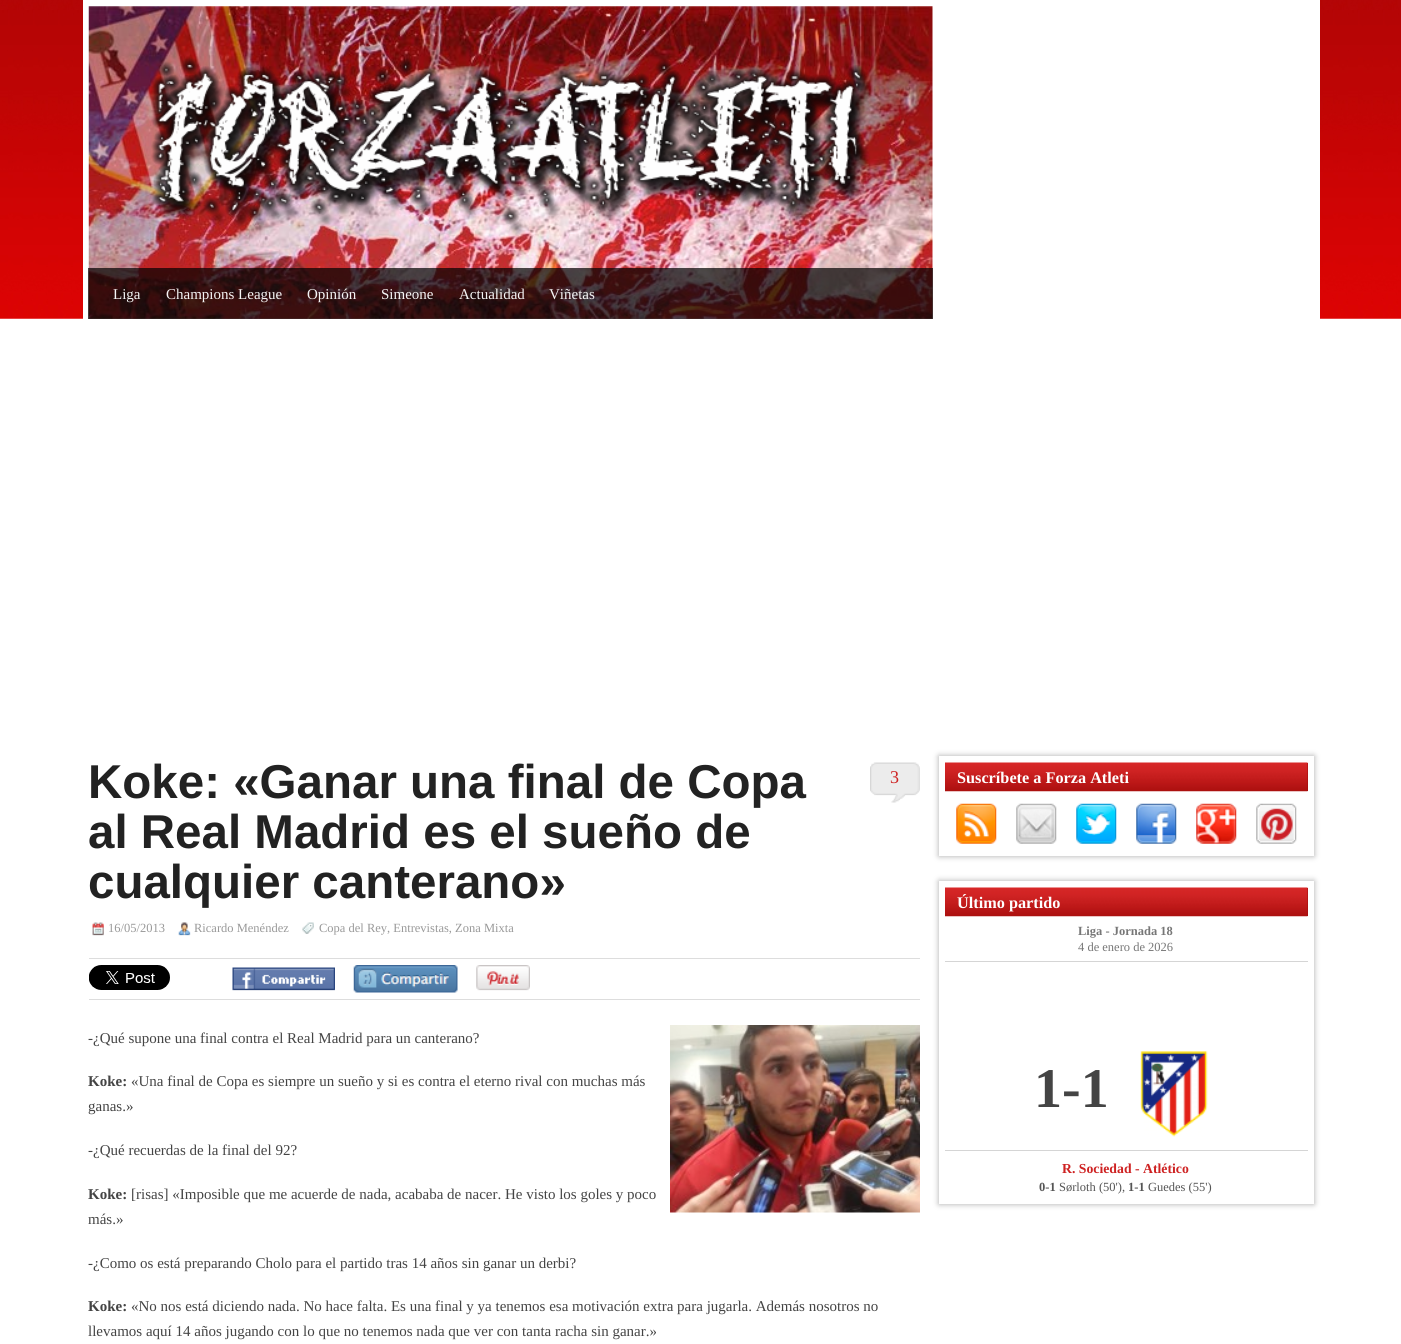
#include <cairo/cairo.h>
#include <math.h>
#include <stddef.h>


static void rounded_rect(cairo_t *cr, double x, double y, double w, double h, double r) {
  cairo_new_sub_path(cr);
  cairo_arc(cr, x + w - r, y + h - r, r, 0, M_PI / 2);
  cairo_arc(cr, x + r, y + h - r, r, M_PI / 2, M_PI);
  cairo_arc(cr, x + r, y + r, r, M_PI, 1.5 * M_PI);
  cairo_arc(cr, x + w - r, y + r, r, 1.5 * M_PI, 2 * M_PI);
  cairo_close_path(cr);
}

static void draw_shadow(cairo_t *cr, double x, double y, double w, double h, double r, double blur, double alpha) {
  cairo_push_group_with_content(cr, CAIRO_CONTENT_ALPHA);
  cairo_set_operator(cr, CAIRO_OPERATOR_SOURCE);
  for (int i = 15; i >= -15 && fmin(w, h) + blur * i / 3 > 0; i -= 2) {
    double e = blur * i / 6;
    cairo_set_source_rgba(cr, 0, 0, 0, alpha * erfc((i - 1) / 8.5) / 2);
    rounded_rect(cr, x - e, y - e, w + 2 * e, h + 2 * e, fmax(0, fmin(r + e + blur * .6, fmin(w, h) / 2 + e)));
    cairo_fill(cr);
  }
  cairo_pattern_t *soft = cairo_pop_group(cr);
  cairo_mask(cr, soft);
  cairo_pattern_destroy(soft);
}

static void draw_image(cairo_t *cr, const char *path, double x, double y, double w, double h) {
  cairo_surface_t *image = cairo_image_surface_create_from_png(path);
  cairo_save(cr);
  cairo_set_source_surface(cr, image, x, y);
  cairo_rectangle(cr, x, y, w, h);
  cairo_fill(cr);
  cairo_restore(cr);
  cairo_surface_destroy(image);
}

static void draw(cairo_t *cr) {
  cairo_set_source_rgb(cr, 1, 1, 1);
  cairo_paint(cr);
  draw_image(cr, "images/1.png", 0, 0, 1401, 319);
  cairo_set_source_rgb(cr, 1, 1, 1);
  cairo_rectangle(cr, 83, 0, 1237, 319);
  cairo_fill(cr);
  draw_image(cr, "images/2.png", 88, 6, 845, 313);
  draw_image(cr, "images/3.png", 151, 57, 722, 179);
  cairo_set_source_rgba(cr, 0, 0, 0, 0.7);
  cairo_rectangle(cr, 88, 268, 845, 51);
  cairo_fill(cr);
  draw_image(cr, "images/4.png", 870, 762, 50, 41);
  draw_image(cr, "images/5.png", 92, 922, 12, 14);
  draw_image(cr, "images/6.png", 178, 922, 13, 14);
  draw_image(cr, "images/7.png", 302, 922, 12, 12);
  cairo_set_source_rgb(cr, 221 / 255.0, 221 / 255.0, 221 / 255.0);
  cairo_rectangle(cr, 89, 958, 831, 1);
  cairo_fill(cr);
  cairo_rectangle(cr, 89, 999, 831, 1);
  cairo_fill(cr);
  draw_image(cr, "images/8.png", 89, 965, 81, 25);
  draw_image(cr, "images/9.png", 232, 967, 103, 24);
  draw_image(cr, "images/10.png", 353, 965, 105, 28);
  draw_image(cr, "images/11.png", 476, 965, 54, 26);
  draw_image(cr, "images/12.png", 670, 1025, 250, 188);
  cairo_save(cr);
  cairo_set_fill_rule(cr, CAIRO_FILL_RULE_EVEN_ODD);
  cairo_new_path(cr);
  cairo_move_to(cr, 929, 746);
  cairo_line_to(cr, 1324, 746);
  cairo_line_to(cr, 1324, 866);
  cairo_line_to(cr, 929, 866);
  cairo_close_path(cr);
  cairo_move_to(cr, 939, 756);
  cairo_line_to(cr, 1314, 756);
  cairo_line_to(cr, 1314, 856);
  cairo_line_to(cr, 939, 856);
  cairo_close_path(cr);
  cairo_clip(cr);
  cairo_set_source_rgb(cr, 170 / 255.0, 170 / 255.0, 170 / 255.0);
  draw_shadow(cr, 939, 756, 375, 100, 0, 3, 1);
  cairo_restore(cr);
  cairo_set_source_rgb(cr, 158 / 255.0, 8 / 255.0, 9 / 255.0);
  cairo_rectangle(cr, 1307, 763, 1, 28);
  cairo_fill(cr);
  draw_image(cr, "images/13.png", 945, 762, 363, 30);
  draw_image(cr, "images/14.png", 956, 803, 41, 41);
  draw_image(cr, "images/15.png", 1016, 803, 41, 41);
  draw_image(cr, "images/16.png", 1076, 803, 41, 41);
  draw_image(cr, "images/17.png", 1136, 803, 41, 41);
  draw_image(cr, "images/18.png", 1196, 803, 41, 41);
  draw_image(cr, "images/19.png", 1256, 803, 41, 41);
  cairo_set_source_rgb(cr, 170 / 255.0, 170 / 255.0, 170 / 255.0);
  draw_shadow(cr, 939, 881, 375, 323, 0, 3, 1);
  cairo_set_source_rgb(cr, 1, 1, 1);
  cairo_rectangle(cr, 939, 881, 375, 323);
  cairo_fill(cr);
  cairo_set_source_rgb(cr, 158 / 255.0, 8 / 255.0, 9 / 255.0);
  cairo_rectangle(cr, 1307, 888, 1, 28);
  cairo_fill(cr);
  draw_image(cr, "images/13.png", 945, 887, 363, 30);
  cairo_set_source_rgb(cr, 213 / 255.0, 213 / 255.0, 213 / 255.0);
  cairo_rectangle(cr, 945, 961, 363, 1);
  cairo_fill(cr);
  draw_image(cr, "images/20.png", 1140, 1051, 68, 86);
  cairo_rectangle(cr, 945, 1150, 363, 1);
  cairo_fill(cr);
  cairo_select_font_face(cr, "Liberation Serif", CAIRO_FONT_SLANT_NORMAL, CAIRO_FONT_WEIGHT_NORMAL);
  cairo_set_font_size(cr, 15);
  cairo_set_source_rgb(cr, 245 / 255.0, 245 / 255.0, 245 / 255.0);
  cairo_move_to(cr, 113, 299);
  cairo_show_text(cr, "Liga");
  cairo_move_to(cr, 166, 299);
  cairo_show_text(cr, "Champions League");
  cairo_move_to(cr, 307, 299);
  cairo_show_text(cr, "Opinión");
  cairo_move_to(cr, 381, 299);
  cairo_show_text(cr, "Simeone");
  cairo_move_to(cr, 459, 299);
  cairo_show_text(cr, "Actualidad");
  cairo_move_to(cr, 549, 299);
  cairo_show_text(cr, "Viñetas");
  cairo_select_font_face(cr, "Liberation Sans", CAIRO_FONT_SLANT_NORMAL, CAIRO_FONT_WEIGHT_BOLD);
  cairo_set_font_size(cr, 47.5);
  cairo_set_source_rgb(cr, 34 / 255.0, 34 / 255.0, 34 / 255.0);
  cairo_move_to(cr, 88, 798);
  cairo_show_text(cr, "Koke: «Ganar una final de Copa");
  cairo_move_to(cr, 88, 848);
  cairo_show_text(cr, "al Real Madrid es el sueño de");
  cairo_move_to(cr, 88, 898);
  cairo_show_text(cr, "cualquier canterano»");
  cairo_select_font_face(cr, "Liberation Serif", CAIRO_FONT_SLANT_NORMAL, CAIRO_FONT_WEIGHT_NORMAL);
  cairo_set_font_size(cr, 18);
  cairo_set_source_rgb(cr, 206 / 255.0, 34 / 255.0, 34 / 255.0);
  cairo_move_to(cr, 890, 783);
  cairo_show_text(cr, "3");
  cairo_set_font_size(cr, 12.5);
  cairo_set_source_rgb(cr, 153 / 255.0, 153 / 255.0, 153 / 255.0);
  cairo_move_to(cr, 108, 932);
  cairo_show_text(cr, "16/05/2013");
  cairo_move_to(cr, 194, 932);
  cairo_show_text(cr, "Ricardo Menéndez");
  cairo_move_to(cr, 319, 932);
  cairo_show_text(cr, "Copa del Rey, Entrevistas, Zona Mixta");
  cairo_set_font_size(cr, 15);
  cairo_set_source_rgb(cr, 68 / 255.0, 68 / 255.0, 68 / 255.0);
  cairo_move_to(cr, 88, 1043);
  cairo_show_text(cr, "-¿Qué supone una final contra el Real Madrid para un canterano?");
  cairo_select_font_face(cr, "Liberation Serif", CAIRO_FONT_SLANT_NORMAL, CAIRO_FONT_WEIGHT_BOLD);
  cairo_move_to(cr, 88, 1086);
  cairo_show_text(cr, "Koke:");
  cairo_select_font_face(cr, "Liberation Serif", CAIRO_FONT_SLANT_NORMAL, CAIRO_FONT_WEIGHT_NORMAL);
  cairo_move_to(cr, 131, 1086);
  cairo_show_text(cr, "«Una final de Copa es siempre un sueño y si es contra el eterno rival con muchas más");
  cairo_move_to(cr, 88, 1111);
  cairo_show_text(cr, "ganas.»");
  cairo_move_to(cr, 88, 1155);
  cairo_show_text(cr, "-¿Qué recuerdas de la final del 92?");
  cairo_select_font_face(cr, "Liberation Serif", CAIRO_FONT_SLANT_NORMAL, CAIRO_FONT_WEIGHT_BOLD);
  cairo_move_to(cr, 88, 1199);
  cairo_show_text(cr, "Koke:");
  cairo_select_font_face(cr, "Liberation Serif", CAIRO_FONT_SLANT_NORMAL, CAIRO_FONT_WEIGHT_NORMAL);
  cairo_move_to(cr, 131, 1199);
  cairo_show_text(cr, "[risas] «Imposible que me acuerde de nada, acababa de nacer. He visto los goles y poco");
  cairo_move_to(cr, 88, 1224);
  cairo_show_text(cr, "más.»");
  cairo_move_to(cr, 88, 1268);
  cairo_show_text(cr, "-¿Como os está preparando Cholo para el partido tras 14 años sin ganar un derbi?");
  cairo_select_font_face(cr, "Liberation Serif", CAIRO_FONT_SLANT_NORMAL, CAIRO_FONT_WEIGHT_BOLD);
  cairo_move_to(cr, 88, 1311);
  cairo_show_text(cr, "Koke:");
  cairo_select_font_face(cr, "Liberation Serif", CAIRO_FONT_SLANT_NORMAL, CAIRO_FONT_WEIGHT_NORMAL);
  cairo_move_to(cr, 131, 1311);
  cairo_show_text(cr, "«No nos está diciendo nada. No hace falta. Es una final y ya tenemos esa motivación extra para jugarla. Además nosotros no");
  cairo_move_to(cr, 88, 1336);
  cairo_show_text(cr, "llevamos aquí 14 años jugando con lo que no tenemos nada que ver con tanta racha sin ganar.»");
  cairo_select_font_face(cr, "Liberation Serif", CAIRO_FONT_SLANT_NORMAL, CAIRO_FONT_WEIGHT_BOLD);
  cairo_set_font_size(cr, 16.25);
  cairo_set_source_rgb(cr, 1, 1, 1);
  cairo_move_to(cr, 957, 783);
  cairo_show_text(cr, "Suscríbete a Forza Atleti");
  cairo_move_to(cr, 957, 908);
  cairo_show_text(cr, "Último partido");
  cairo_set_font_size(cr, 12.5);
  cairo_set_source_rgb(cr, 119 / 255.0, 119 / 255.0, 119 / 255.0);
  cairo_move_to(cr, 1078, 935);
  cairo_show_text(cr, "Liga - Jornada 18");
  cairo_select_font_face(cr, "Liberation Serif", CAIRO_FONT_SLANT_NORMAL, CAIRO_FONT_WEIGHT_NORMAL);
  cairo_move_to(cr, 1078, 951);
  cairo_show_text(cr, "4 de enero de 2026");
  cairo_select_font_face(cr, "Liberation Serif", CAIRO_FONT_SLANT_NORMAL, CAIRO_FONT_WEIGHT_BOLD);
  cairo_set_font_size(cr, 56);
  cairo_set_source_rgb(cr, 68 / 255.0, 68 / 255.0, 68 / 255.0);
  cairo_move_to(cr, 1034, 1107);
  cairo_show_text(cr, "1-1");
  cairo_set_font_size(cr, 13.75);
  cairo_set_source_rgb(cr, 206 / 255.0, 34 / 255.0, 34 / 255.0);
  cairo_move_to(cr, 1062, 1173);
  cairo_show_text(cr, "R. Sociedad - Atlético");
  cairo_set_font_size(cr, 12.5);
  cairo_set_source_rgb(cr, 85 / 255.0, 85 / 255.0, 85 / 255.0);
  cairo_move_to(cr, 1039, 1191);
  cairo_show_text(cr, "0-1");
  cairo_select_font_face(cr, "Liberation Serif", CAIRO_FONT_SLANT_NORMAL, CAIRO_FONT_WEIGHT_NORMAL);
  cairo_move_to(cr, 1059, 1191);
  cairo_show_text(cr, "Sørloth (50'),");
  cairo_select_font_face(cr, "Liberation Serif", CAIRO_FONT_SLANT_NORMAL, CAIRO_FONT_WEIGHT_BOLD);
  cairo_move_to(cr, 1128, 1191);
  cairo_show_text(cr, "1-1");
  cairo_select_font_face(cr, "Liberation Serif", CAIRO_FONT_SLANT_NORMAL, CAIRO_FONT_WEIGHT_NORMAL);
  cairo_move_to(cr, 1148, 1191);
  cairo_show_text(cr, "Guedes (55')");
}

int main(void) {
  cairo_surface_t *surface = cairo_image_surface_create(CAIRO_FORMAT_RGB24, 1401, 1344);
  cairo_t *cr = cairo_create(surface);
  cairo_font_options_t *options = cairo_font_options_create();
  cairo_font_options_set_hint_metrics(options, CAIRO_HINT_METRICS_OFF);
  cairo_font_options_set_hint_style(options, CAIRO_HINT_STYLE_NONE);
  cairo_set_font_options(cr, options);
  cairo_set_miter_limit(cr, 4);
  draw(cr);
  cairo_surface_write_to_png(surface, "out.png");
  cairo_font_options_destroy(options);
  cairo_destroy(cr);
  cairo_surface_destroy(surface);
  return 0;
}
